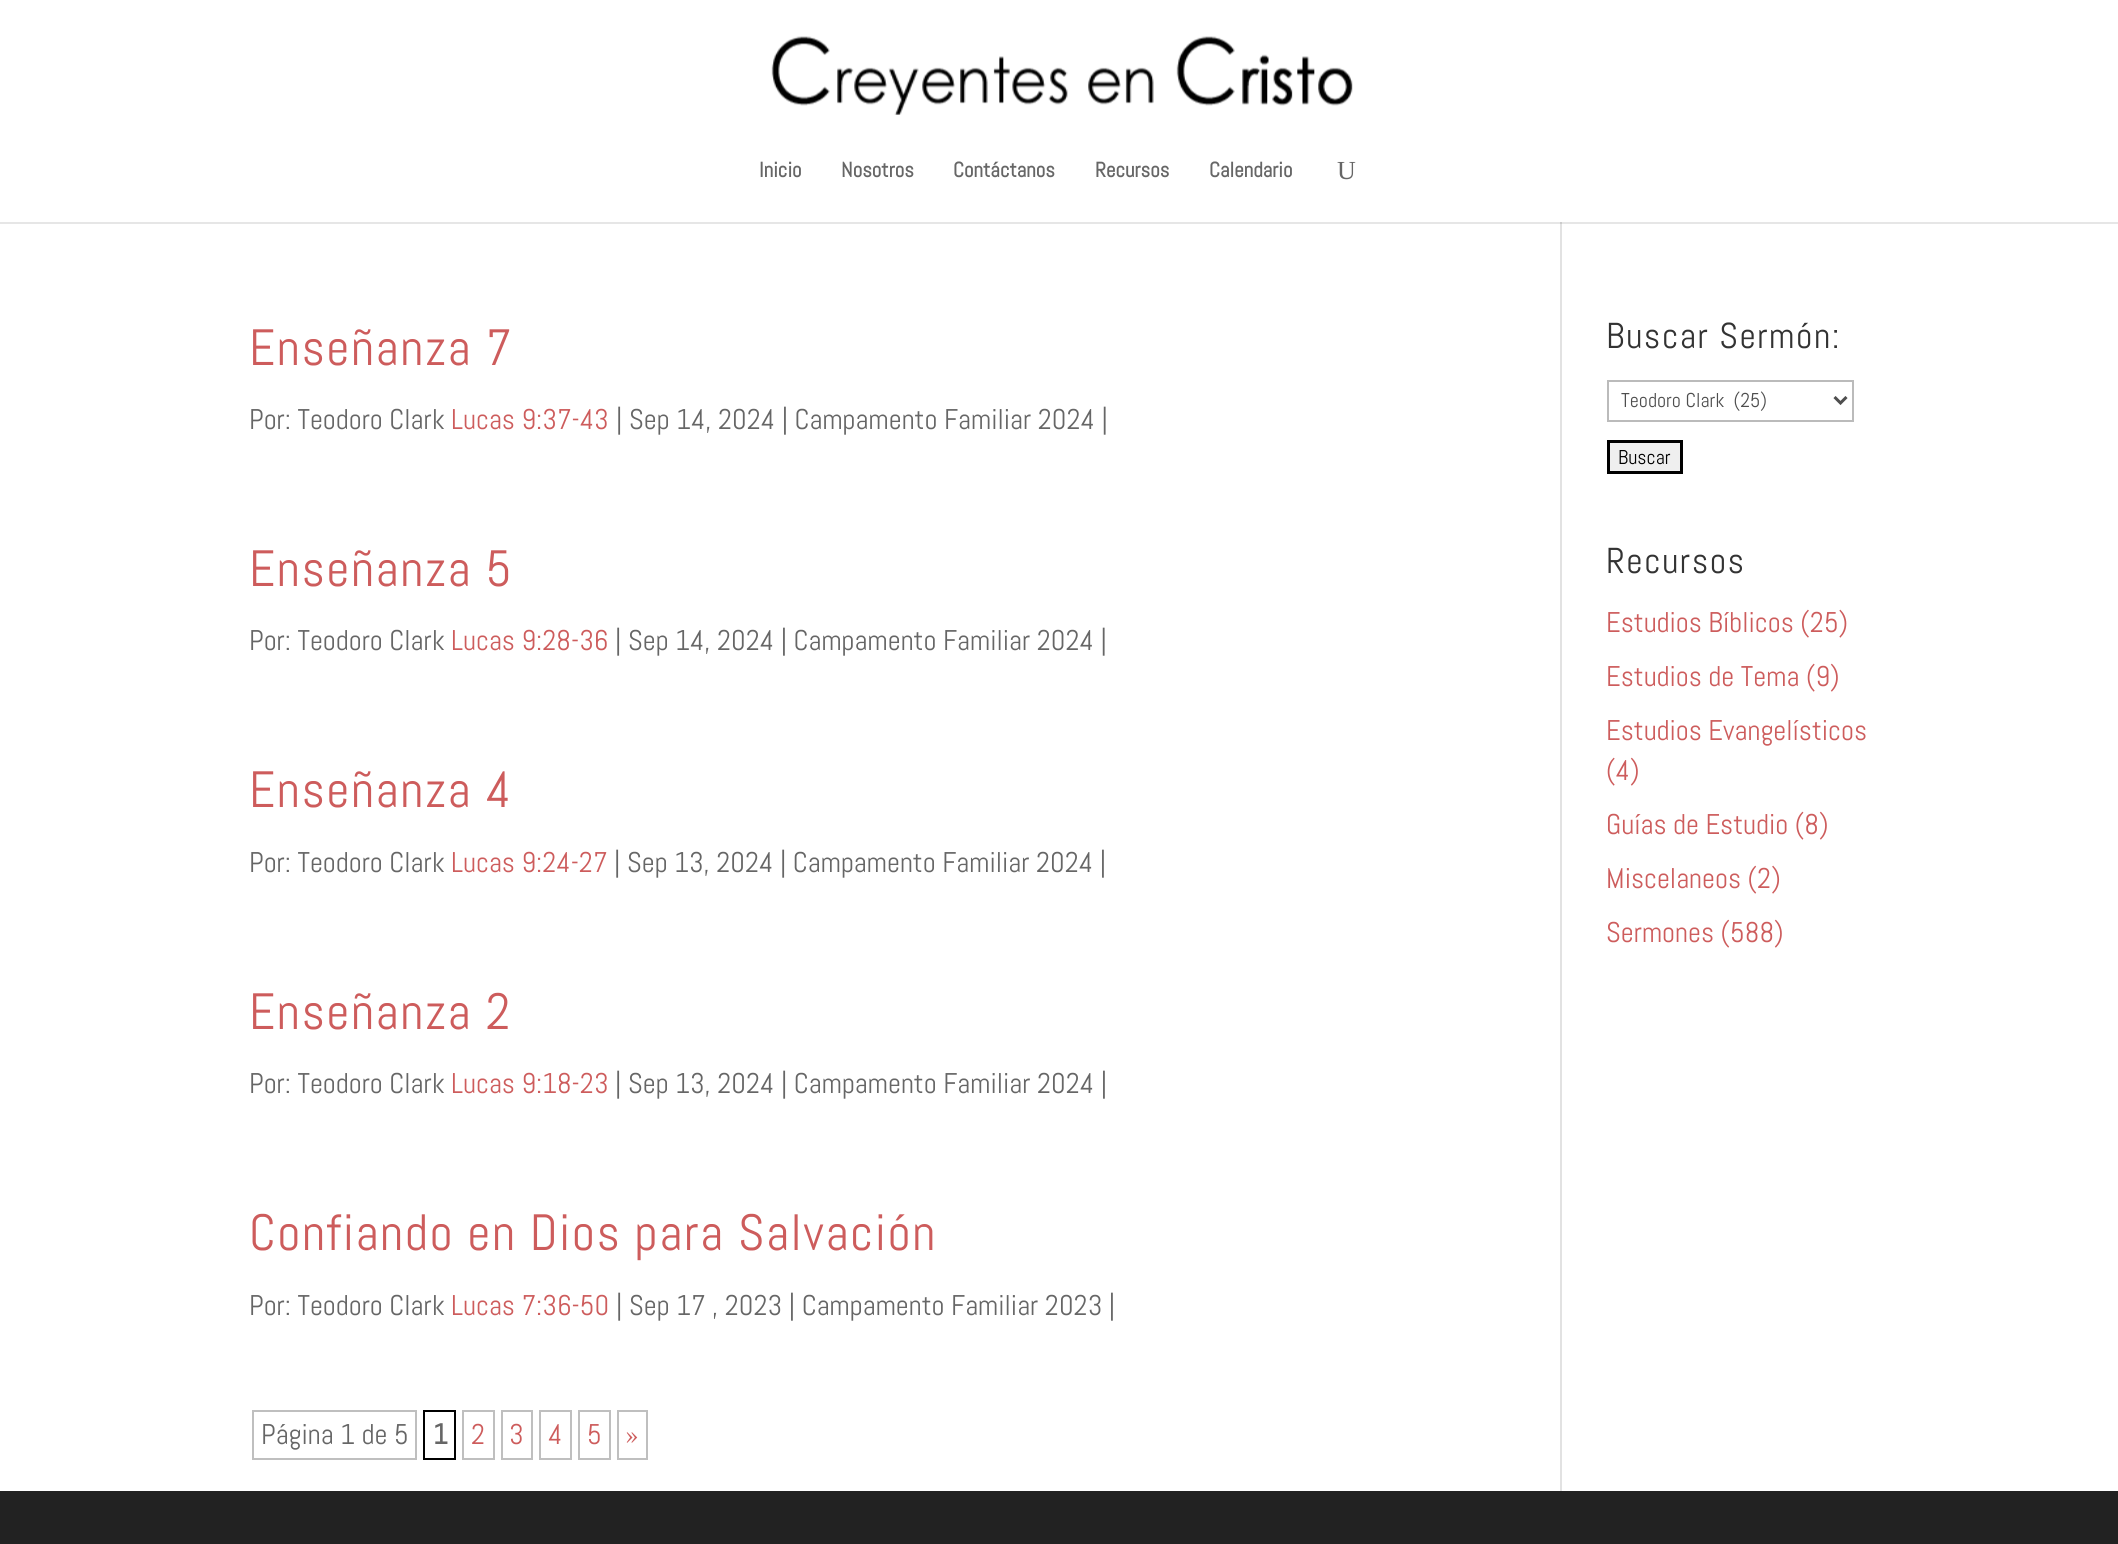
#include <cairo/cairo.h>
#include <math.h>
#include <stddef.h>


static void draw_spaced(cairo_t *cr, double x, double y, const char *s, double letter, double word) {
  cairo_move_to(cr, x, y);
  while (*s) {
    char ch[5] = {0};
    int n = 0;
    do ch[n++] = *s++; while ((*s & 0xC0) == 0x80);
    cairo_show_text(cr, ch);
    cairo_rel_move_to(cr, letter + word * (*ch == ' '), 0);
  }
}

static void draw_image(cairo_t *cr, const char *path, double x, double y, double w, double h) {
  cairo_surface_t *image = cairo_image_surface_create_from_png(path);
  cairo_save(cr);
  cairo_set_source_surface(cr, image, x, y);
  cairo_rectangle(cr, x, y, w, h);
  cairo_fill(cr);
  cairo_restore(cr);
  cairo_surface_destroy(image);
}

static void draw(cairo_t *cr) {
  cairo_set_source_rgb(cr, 1, 1, 1);
  cairo_paint(cr);
  cairo_set_source_rgb(cr, 230 / 255.0, 230 / 255.0, 230 / 255.0);
  cairo_rectangle(cr, 0, 222, 2118, 2);
  cairo_fill(cr);
  draw_image(cr, "images/1.png", 771, 36, 582, 79);
  cairo_set_source_rgb(cr, 226 / 255.0, 226 / 255.0, 226 / 255.0);
  cairo_rectangle(cr, 1560, 222, 2, 1269);
  cairo_fill(cr);
  cairo_set_source_rgb(cr, 203 / 255.0, 203 / 255.0, 203 / 255.0);
  cairo_rectangle(cr, 1560, 222, 2, 2);
  cairo_fill(cr);
  cairo_rectangle(cr, 253, 1411, 163, 48);
  cairo_set_source_rgb(cr, 191 / 255.0, 191 / 255.0, 191 / 255.0);
  cairo_stroke(cr);
  cairo_rectangle(cr, 424, 1411, 31, 48);
  cairo_set_source_rgb(cr, 0, 0, 0);
  cairo_stroke(cr);
  cairo_rectangle(cr, 463, 1411, 31, 48);
  cairo_set_source_rgb(cr, 191 / 255.0, 191 / 255.0, 191 / 255.0);
  cairo_stroke(cr);
  cairo_rectangle(cr, 502, 1411, 30, 48);
  cairo_stroke(cr);
  cairo_rectangle(cr, 540, 1411, 31, 48);
  cairo_stroke(cr);
  cairo_rectangle(cr, 579, 1411, 31, 48);
  cairo_stroke(cr);
  cairo_rectangle(cr, 618, 1411, 29, 48);
  cairo_stroke(cr);
  cairo_rectangle(cr, 1608, 381, 245, 40);
  cairo_set_source_rgb(cr, 187 / 255.0, 187 / 255.0, 187 / 255.0);
  cairo_stroke(cr);
  cairo_new_path(cr);
  cairo_move_to(cr, 1834.5, 397);
  cairo_line_to(cr, 1840.5, 403);
  cairo_line_to(cr, 1846.5, 397);
  cairo_set_source_rgb(cr, 78 / 255.0, 78 / 255.0, 78 / 255.0);
  cairo_set_line_width(cr, 3);
  cairo_stroke(cr);
  cairo_set_source_rgb(cr, 239 / 255.0, 239 / 255.0, 239 / 255.0);
  cairo_rectangle(cr, 1608.5, 441.5, 73, 31);
  cairo_fill_preserve(cr);
  cairo_set_source_rgb(cr, 0, 0, 0);
  cairo_stroke(cr);
  cairo_set_source_rgb(cr, 34 / 255.0, 34 / 255.0, 34 / 255.0);
  cairo_rectangle(cr, 0, 1491, 2118, 53);
  cairo_fill(cr);
  cairo_select_font_face(cr, "Abel", CAIRO_FONT_SLANT_NORMAL, CAIRO_FONT_WEIGHT_BOLD);
  cairo_set_font_size(cr, 21);
  cairo_set_source_rgb(cr, 102 / 255.0, 102 / 255.0, 102 / 255.0);
  cairo_move_to(cr, 759, 177);
  cairo_show_text(cr, "Inicio");
  cairo_move_to(cr, 841, 177);
  cairo_show_text(cr, "Nosotros");
  cairo_move_to(cr, 953, 177);
  cairo_show_text(cr, "Contáctanos");
  cairo_move_to(cr, 1095, 177);
  cairo_show_text(cr, "Recursos");
  cairo_move_to(cr, 1209, 177);
  cairo_show_text(cr, "Calendario");
  cairo_select_font_face(cr, "Liberation Serif", CAIRO_FONT_SLANT_NORMAL, CAIRO_FONT_WEIGHT_NORMAL);
  cairo_set_font_size(cr, 26);
  cairo_move_to(cr, 1337, 179);
  cairo_show_text(cr, "U");
  cairo_select_font_face(cr, "Abel", CAIRO_FONT_SLANT_NORMAL, CAIRO_FONT_WEIGHT_NORMAL);
  cairo_set_font_size(cr, 51);
  cairo_set_source_rgb(cr, 205 / 255.0, 92 / 255.0, 92 / 255.0);
  draw_spaced(cr, 249, 365, "Enseñanza 7", 1.5, 0);
  cairo_set_font_size(cr, 28.5);
  cairo_set_source_rgb(cr, 102 / 255.0, 102 / 255.0, 102 / 255.0);
  cairo_move_to(cr, 249, 429);
  cairo_show_text(cr, "Por: Teodoro Clark");
  cairo_set_source_rgb(cr, 205 / 255.0, 92 / 255.0, 92 / 255.0);
  cairo_move_to(cr, 451, 429);
  cairo_show_text(cr, "Lucas 9:37-43");
  cairo_set_source_rgb(cr, 102 / 255.0, 102 / 255.0, 102 / 255.0);
  cairo_move_to(cr, 616, 429);
  cairo_show_text(cr, "| Sep 14, 2024 | Campamento Familiar 2024 |");
  cairo_set_font_size(cr, 51);
  cairo_set_source_rgb(cr, 205 / 255.0, 92 / 255.0, 92 / 255.0);
  draw_spaced(cr, 249, 586, "Enseñanza 5", 1.5, 0);
  cairo_set_font_size(cr, 28.5);
  cairo_set_source_rgb(cr, 102 / 255.0, 102 / 255.0, 102 / 255.0);
  cairo_move_to(cr, 249, 650);
  cairo_show_text(cr, "Por: Teodoro Clark");
  cairo_set_source_rgb(cr, 205 / 255.0, 92 / 255.0, 92 / 255.0);
  cairo_move_to(cr, 451, 650);
  cairo_show_text(cr, "Lucas 9:28-36");
  cairo_set_source_rgb(cr, 102 / 255.0, 102 / 255.0, 102 / 255.0);
  cairo_move_to(cr, 615, 650);
  cairo_show_text(cr, "| Sep 14, 2024 | Campamento Familiar 2024 |");
  cairo_set_font_size(cr, 51);
  cairo_set_source_rgb(cr, 205 / 255.0, 92 / 255.0, 92 / 255.0);
  draw_spaced(cr, 249, 807, "Enseñanza 4", 1.5, 0);
  cairo_set_font_size(cr, 28.5);
  cairo_set_source_rgb(cr, 102 / 255.0, 102 / 255.0, 102 / 255.0);
  cairo_move_to(cr, 249, 872);
  cairo_show_text(cr, "Por: Teodoro Clark");
  cairo_set_source_rgb(cr, 205 / 255.0, 92 / 255.0, 92 / 255.0);
  cairo_move_to(cr, 451, 872);
  cairo_show_text(cr, "Lucas 9:24-27");
  cairo_set_source_rgb(cr, 102 / 255.0, 102 / 255.0, 102 / 255.0);
  cairo_move_to(cr, 614, 872);
  cairo_show_text(cr, "| Sep 13, 2024 | Campamento Familiar 2024 |");
  cairo_set_font_size(cr, 51);
  cairo_set_source_rgb(cr, 205 / 255.0, 92 / 255.0, 92 / 255.0);
  draw_spaced(cr, 249, 1029, "Enseñanza 2", 1.5, 0);
  cairo_set_font_size(cr, 28.5);
  cairo_set_source_rgb(cr, 102 / 255.0, 102 / 255.0, 102 / 255.0);
  cairo_move_to(cr, 249, 1093);
  cairo_show_text(cr, "Por: Teodoro Clark");
  cairo_set_source_rgb(cr, 205 / 255.0, 92 / 255.0, 92 / 255.0);
  cairo_move_to(cr, 451, 1093);
  cairo_show_text(cr, "Lucas 9:18-23");
  cairo_set_source_rgb(cr, 102 / 255.0, 102 / 255.0, 102 / 255.0);
  cairo_move_to(cr, 615, 1093);
  cairo_show_text(cr, "| Sep 13, 2024 | Campamento Familiar 2024 |");
  cairo_set_font_size(cr, 51);
  cairo_set_source_rgb(cr, 205 / 255.0, 92 / 255.0, 92 / 255.0);
  draw_spaced(cr, 249, 1250, "Confiando en Dios para Salvación", 1.5, 0);
  cairo_set_font_size(cr, 28.5);
  cairo_set_source_rgb(cr, 102 / 255.0, 102 / 255.0, 102 / 255.0);
  cairo_move_to(cr, 249, 1315);
  cairo_show_text(cr, "Por: Teodoro Clark");
  cairo_set_source_rgb(cr, 205 / 255.0, 92 / 255.0, 92 / 255.0);
  cairo_move_to(cr, 451, 1315);
  cairo_show_text(cr, "Lucas 7:36-50");
  cairo_set_source_rgb(cr, 102 / 255.0, 102 / 255.0, 102 / 255.0);
  cairo_move_to(cr, 616, 1315);
  cairo_show_text(cr, "| Sep 17 , 2023 | Campamento Familiar 2023 |");
  cairo_move_to(cr, 261, 1444);
  cairo_show_text(cr, "Página 1 de 5");
  cairo_select_font_face(cr, "Abel", CAIRO_FONT_SLANT_NORMAL, CAIRO_FONT_WEIGHT_BOLD);
  cairo_move_to(cr, 433, 1444);
  cairo_show_text(cr, "1");
  cairo_select_font_face(cr, "Abel", CAIRO_FONT_SLANT_NORMAL, CAIRO_FONT_WEIGHT_NORMAL);
  cairo_set_source_rgb(cr, 205 / 255.0, 92 / 255.0, 92 / 255.0);
  cairo_move_to(cr, 471, 1444);
  cairo_show_text(cr, "2");
  cairo_move_to(cr, 509, 1444);
  cairo_show_text(cr, "3");
  cairo_move_to(cr, 548, 1444);
  cairo_show_text(cr, "4");
  cairo_move_to(cr, 587, 1444);
  cairo_show_text(cr, "5");
  cairo_move_to(cr, 625, 1444);
  cairo_show_text(cr, "»");
  cairo_set_font_size(cr, 36);
  cairo_set_source_rgb(cr, 51 / 255.0, 51 / 255.0, 51 / 255.0);
  draw_spaced(cr, 1606, 348, "Buscar Sermón:", 1.5, 0);
  cairo_set_font_size(cr, 20);
  cairo_set_source_rgb(cr, 78 / 255.0, 78 / 255.0, 78 / 255.0);
  cairo_move_to(cr, 1621, 407);
  cairo_show_text(cr, "Teodoro Clark  (25)");
  cairo_set_source_rgb(cr, 0, 0, 0);
  cairo_move_to(cr, 1618, 464);
  cairo_show_text(cr, "Buscar");
  cairo_set_font_size(cr, 36);
  cairo_set_source_rgb(cr, 51 / 255.0, 51 / 255.0, 51 / 255.0);
  draw_spaced(cr, 1606, 573, "Recursos", 1.5, 0);
  cairo_set_font_size(cr, 28.5);
  cairo_set_source_rgb(cr, 205 / 255.0, 92 / 255.0, 92 / 255.0);
  cairo_move_to(cr, 1606, 632);
  cairo_show_text(cr, "Estudios Bíblicos (25)");
  cairo_move_to(cr, 1606, 686);
  cairo_show_text(cr, "Estudios de Tema (9)");
  cairo_move_to(cr, 1606, 740);
  cairo_show_text(cr, "Estudios Evangelísticos");
  cairo_move_to(cr, 1606, 780);
  cairo_show_text(cr, "(4)");
  cairo_move_to(cr, 1606, 834);
  cairo_show_text(cr, "Guías de Estudio (8)");
  cairo_move_to(cr, 1606, 888);
  cairo_show_text(cr, "Miscelaneos (2)");
  cairo_move_to(cr, 1606, 942);
  cairo_show_text(cr, "Sermones (588)");
}

int main(void) {
  cairo_surface_t *surface = cairo_image_surface_create(CAIRO_FORMAT_RGB24, 2118, 1544);
  cairo_t *cr = cairo_create(surface);
  cairo_font_options_t *options = cairo_font_options_create();
  cairo_font_options_set_hint_metrics(options, CAIRO_HINT_METRICS_OFF);
  cairo_font_options_set_hint_style(options, CAIRO_HINT_STYLE_NONE);
  cairo_set_font_options(cr, options);
  cairo_set_miter_limit(cr, 4);
  draw(cr);
  cairo_surface_write_to_png(surface, "out.png");
  cairo_font_options_destroy(options);
  cairo_destroy(cr);
  cairo_surface_destroy(surface);
  return 0;
}
